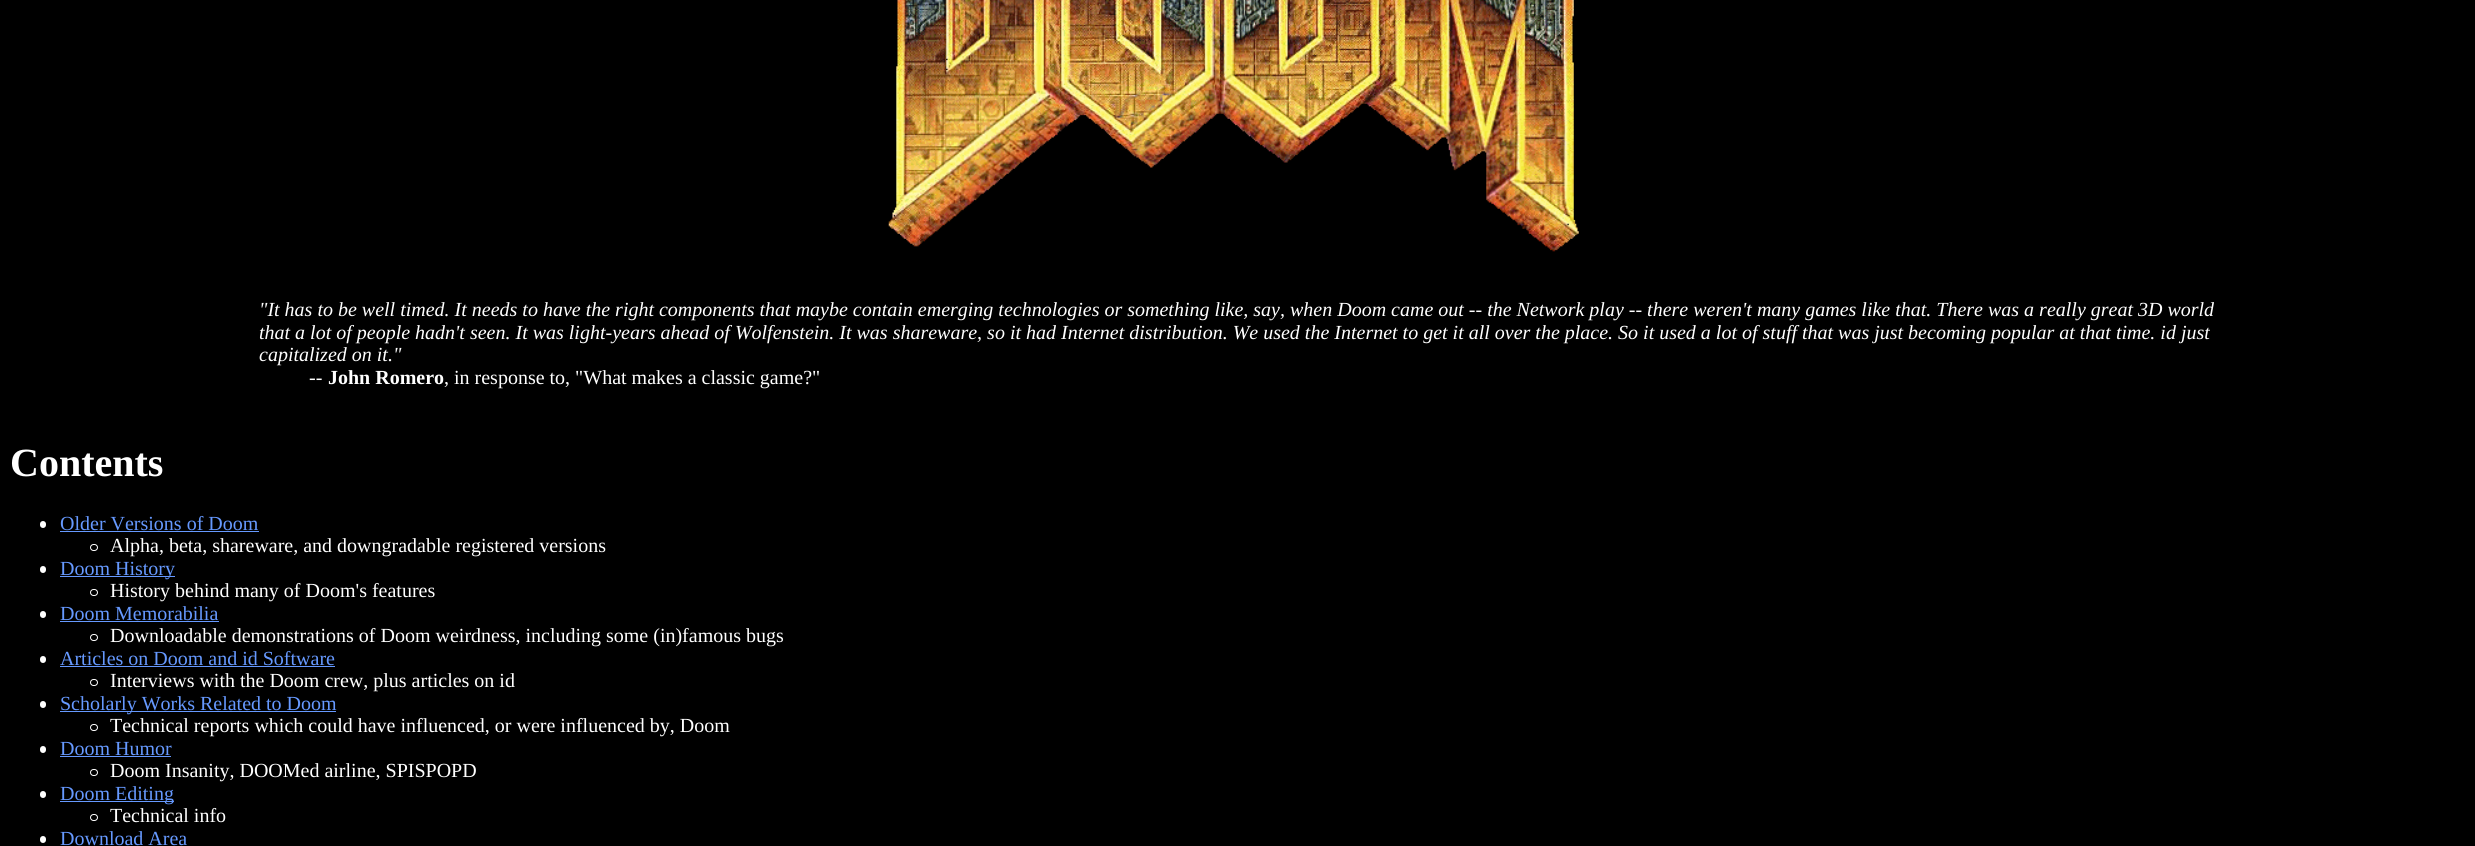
#include <cairo/cairo.h>
#include <math.h>
#include <stddef.h>


static void rounded_rect(cairo_t *cr, double x, double y, double w, double h, double r) {
  cairo_new_sub_path(cr);
  cairo_arc(cr, x + w - r, y + h - r, r, 0, M_PI / 2);
  cairo_arc(cr, x + r, y + h - r, r, M_PI / 2, M_PI);
  cairo_arc(cr, x + r, y + r, r, M_PI, 1.5 * M_PI);
  cairo_arc(cr, x + w - r, y + r, r, 1.5 * M_PI, 2 * M_PI);
  cairo_close_path(cr);
}

static void draw_image(cairo_t *cr, const char *path, double x, double y, double w, double h) {
  cairo_surface_t *image = cairo_image_surface_create_from_png(path);
  cairo_save(cr);
  cairo_set_source_surface(cr, image, x, y);
  cairo_rectangle(cr, x, y, w, h);
  cairo_fill(cr);
  cairo_restore(cr);
  cairo_surface_destroy(image);
}

static void draw(cairo_t *cr) {
  cairo_set_source_rgb(cr, 0, 0, 0);
  cairo_paint(cr);
  draw_image(cr, "images/1.png", 888, 0, 691, 252);
  cairo_set_source_rgb(cr, 1, 1, 1);
  rounded_rect(cr, 40, 521, 6, 7, 3);
  cairo_fill(cr);
  cairo_set_source_rgb(cr, 102 / 255.0, 153 / 255.0, 1);
  cairo_rectangle(cr, 60, 531, 199, 1);
  cairo_fill(cr);
  rounded_rect(cr, 90.5, 544.5, 7, 6, 3);
  cairo_set_source_rgb(cr, 1, 1, 1);
  cairo_set_line_width(cr, 1);
  cairo_stroke(cr);
  rounded_rect(cr, 40, 566, 6, 7, 3);
  cairo_fill(cr);
  cairo_set_source_rgb(cr, 102 / 255.0, 153 / 255.0, 1);
  cairo_rectangle(cr, 60, 576, 115, 1);
  cairo_fill(cr);
  rounded_rect(cr, 90.5, 589.5, 7, 6, 3);
  cairo_set_source_rgb(cr, 1, 1, 1);
  cairo_stroke(cr);
  rounded_rect(cr, 40, 611, 6, 7, 3);
  cairo_fill(cr);
  cairo_set_source_rgb(cr, 102 / 255.0, 153 / 255.0, 1);
  cairo_rectangle(cr, 60, 621, 159, 1);
  cairo_fill(cr);
  rounded_rect(cr, 90.5, 634.5, 7, 6, 3);
  cairo_set_source_rgb(cr, 1, 1, 1);
  cairo_stroke(cr);
  rounded_rect(cr, 40, 656, 6, 7, 3);
  cairo_fill(cr);
  cairo_set_source_rgb(cr, 102 / 255.0, 153 / 255.0, 1);
  cairo_rectangle(cr, 60, 666, 275, 1);
  cairo_fill(cr);
  rounded_rect(cr, 90.5, 679.5, 7, 6, 3);
  cairo_set_source_rgb(cr, 1, 1, 1);
  cairo_stroke(cr);
  rounded_rect(cr, 40, 701, 6, 7, 3);
  cairo_fill(cr);
  cairo_set_source_rgb(cr, 102 / 255.0, 153 / 255.0, 1);
  cairo_rectangle(cr, 60, 711, 276, 1);
  cairo_fill(cr);
  rounded_rect(cr, 90.5, 724.5, 7, 6, 3);
  cairo_set_source_rgb(cr, 1, 1, 1);
  cairo_stroke(cr);
  rounded_rect(cr, 40, 746, 6, 7, 3);
  cairo_fill(cr);
  cairo_set_source_rgb(cr, 102 / 255.0, 153 / 255.0, 1);
  cairo_rectangle(cr, 60, 756, 111, 1);
  cairo_fill(cr);
  rounded_rect(cr, 90.5, 769.5, 7, 6, 3);
  cairo_set_source_rgb(cr, 1, 1, 1);
  cairo_stroke(cr);
  rounded_rect(cr, 40, 791, 6, 7, 3);
  cairo_fill(cr);
  cairo_set_source_rgb(cr, 102 / 255.0, 153 / 255.0, 1);
  cairo_rectangle(cr, 60, 801, 114, 1);
  cairo_fill(cr);
  rounded_rect(cr, 90.5, 814.5, 7, 6, 3);
  cairo_set_source_rgb(cr, 1, 1, 1);
  cairo_stroke(cr);
  rounded_rect(cr, 40, 836, 6, 7, 3);
  cairo_fill(cr);
  cairo_select_font_face(cr, "Liberation Serif", CAIRO_FONT_SLANT_ITALIC, CAIRO_FONT_WEIGHT_NORMAL);
  cairo_set_font_size(cr, 20);
  cairo_move_to(cr, 259, 316);
  cairo_show_text(cr, "\"It has to be well timed. It needs to have the right components that maybe contain emerging technologies or something like, say, when Doom came out -- the Network play -- there weren't many games like that. There was a really great 3D world");
  cairo_move_to(cr, 259, 339);
  cairo_show_text(cr, "that a lot of people hadn't seen. It was light-years ahead of Wolfenstein. It was shareware, so it had Internet distribution. We used the Internet to get it all over the place. So it used a lot of stuff that was just becoming popular at that time. id just");
  cairo_move_to(cr, 259, 361);
  cairo_show_text(cr, "capitalized on it.\"");
  cairo_select_font_face(cr, "Liberation Serif", CAIRO_FONT_SLANT_NORMAL, CAIRO_FONT_WEIGHT_NORMAL);
  cairo_move_to(cr, 309, 384);
  cairo_show_text(cr, "--");
  cairo_select_font_face(cr, "Liberation Serif", CAIRO_FONT_SLANT_NORMAL, CAIRO_FONT_WEIGHT_BOLD);
  cairo_move_to(cr, 328, 384);
  cairo_show_text(cr, "John Romero");
  cairo_select_font_face(cr, "Liberation Serif", CAIRO_FONT_SLANT_NORMAL, CAIRO_FONT_WEIGHT_NORMAL);
  cairo_move_to(cr, 444, 384);
  cairo_show_text(cr, ", in response to, \"What makes a classic game?\"");
  cairo_select_font_face(cr, "Liberation Serif", CAIRO_FONT_SLANT_NORMAL, CAIRO_FONT_WEIGHT_BOLD);
  cairo_set_font_size(cr, 40);
  cairo_move_to(cr, 10, 476);
  cairo_show_text(cr, "Contents");
  cairo_select_font_face(cr, "Liberation Serif", CAIRO_FONT_SLANT_NORMAL, CAIRO_FONT_WEIGHT_NORMAL);
  cairo_set_font_size(cr, 20);
  cairo_set_source_rgb(cr, 102 / 255.0, 153 / 255.0, 1);
  cairo_move_to(cr, 60, 530);
  cairo_show_text(cr, "Older Versions of Doom");
  cairo_set_source_rgb(cr, 1, 1, 1);
  cairo_move_to(cr, 110, 552);
  cairo_show_text(cr, "Alpha, beta, shareware, and downgradable registered versions");
  cairo_set_source_rgb(cr, 102 / 255.0, 153 / 255.0, 1);
  cairo_move_to(cr, 60, 575);
  cairo_show_text(cr, "Doom History");
  cairo_set_source_rgb(cr, 1, 1, 1);
  cairo_move_to(cr, 110, 597);
  cairo_show_text(cr, "History behind many of Doom's features");
  cairo_set_source_rgb(cr, 102 / 255.0, 153 / 255.0, 1);
  cairo_move_to(cr, 60, 620);
  cairo_show_text(cr, "Doom Memorabilia");
  cairo_set_source_rgb(cr, 1, 1, 1);
  cairo_move_to(cr, 110, 642);
  cairo_show_text(cr, "Downloadable demonstrations of Doom weirdness, including some (in)famous bugs");
  cairo_set_source_rgb(cr, 102 / 255.0, 153 / 255.0, 1);
  cairo_move_to(cr, 60, 665);
  cairo_show_text(cr, "Articles on Doom and id Software");
  cairo_set_source_rgb(cr, 1, 1, 1);
  cairo_move_to(cr, 110, 687);
  cairo_show_text(cr, "Interviews with the Doom crew, plus articles on id");
  cairo_set_source_rgb(cr, 102 / 255.0, 153 / 255.0, 1);
  cairo_move_to(cr, 60, 710);
  cairo_show_text(cr, "Scholarly Works Related to Doom");
  cairo_set_source_rgb(cr, 1, 1, 1);
  cairo_move_to(cr, 110, 732);
  cairo_show_text(cr, "Technical reports which could have influenced, or were influenced by, Doom");
  cairo_set_source_rgb(cr, 102 / 255.0, 153 / 255.0, 1);
  cairo_move_to(cr, 60, 755);
  cairo_show_text(cr, "Doom Humor");
  cairo_set_source_rgb(cr, 1, 1, 1);
  cairo_move_to(cr, 110, 777);
  cairo_show_text(cr, "Doom Insanity, DOOMed airline, SPISPOPD");
  cairo_set_source_rgb(cr, 102 / 255.0, 153 / 255.0, 1);
  cairo_move_to(cr, 60, 800);
  cairo_show_text(cr, "Doom Editing");
  cairo_set_source_rgb(cr, 1, 1, 1);
  cairo_move_to(cr, 110, 822);
  cairo_show_text(cr, "Technical info");
  cairo_set_source_rgb(cr, 102 / 255.0, 153 / 255.0, 1);
  cairo_move_to(cr, 60, 845);
  cairo_show_text(cr, "Download Area");
}

int main(void) {
  cairo_surface_t *surface = cairo_image_surface_create(CAIRO_FORMAT_RGB24, 2475, 846);
  cairo_t *cr = cairo_create(surface);
  cairo_font_options_t *options = cairo_font_options_create();
  cairo_font_options_set_hint_metrics(options, CAIRO_HINT_METRICS_OFF);
  cairo_font_options_set_hint_style(options, CAIRO_HINT_STYLE_NONE);
  cairo_set_font_options(cr, options);
  cairo_set_miter_limit(cr, 4);
  draw(cr);
  cairo_surface_write_to_png(surface, "out.png");
  cairo_font_options_destroy(options);
  cairo_destroy(cr);
  cairo_surface_destroy(surface);
  return 0;
}
